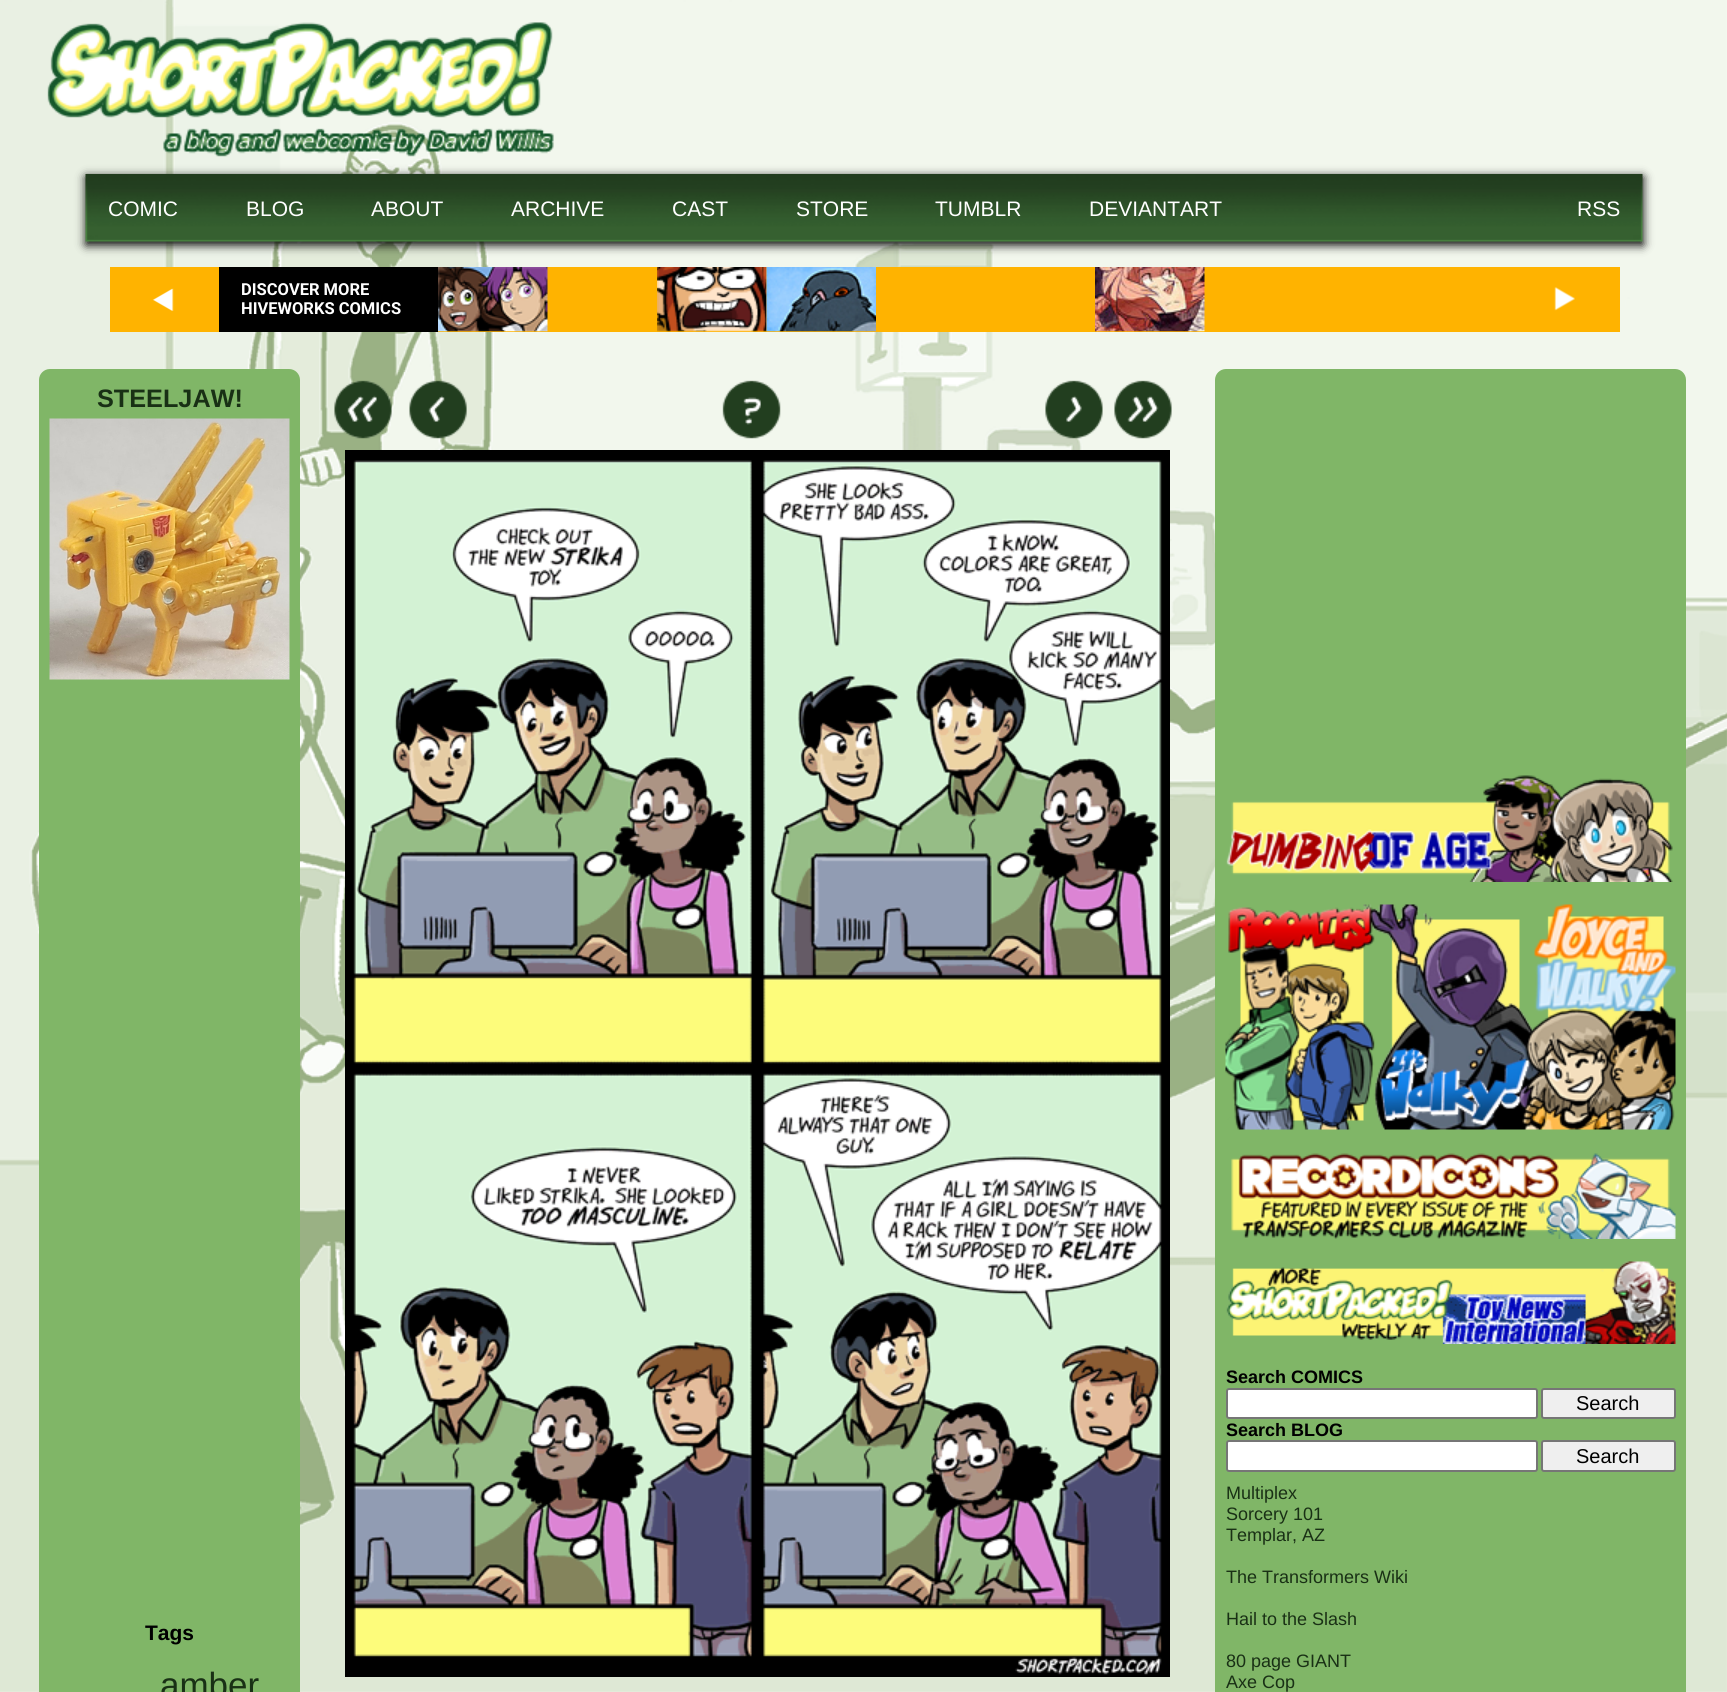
#include <cairo/cairo.h>
#include <math.h>
#include <stddef.h>


static void rounded_rect(cairo_t *cr, double x, double y, double w, double h, double r) {
  cairo_new_sub_path(cr);
  cairo_arc(cr, x + w - r, y + h - r, r, 0, M_PI / 2);
  cairo_arc(cr, x + r, y + h - r, r, M_PI / 2, M_PI);
  cairo_arc(cr, x + r, y + r, r, M_PI, 1.5 * M_PI);
  cairo_arc(cr, x + w - r, y + r, r, 1.5 * M_PI, 2 * M_PI);
  cairo_close_path(cr);
}

static void draw_shadow(cairo_t *cr, double x, double y, double w, double h, double r, double blur, double alpha) {
  cairo_push_group_with_content(cr, CAIRO_CONTENT_ALPHA);
  cairo_set_operator(cr, CAIRO_OPERATOR_SOURCE);
  for (int i = 15; i >= -15 && fmin(w, h) + blur * i / 3 > 0; i -= 2) {
    double e = blur * i / 6;
    cairo_set_source_rgba(cr, 0, 0, 0, alpha * erfc((i - 1) / 8.5) / 2);
    rounded_rect(cr, x - e, y - e, w + 2 * e, h + 2 * e, fmax(0, fmin(r + e + blur * .6, fmin(w, h) / 2 + e)));
    cairo_fill(cr);
  }
  cairo_pattern_t *soft = cairo_pop_group(cr);
  cairo_mask(cr, soft);
  cairo_pattern_destroy(soft);
}

static void draw_image(cairo_t *cr, const char *path, double x, double y, double w, double h) {
  cairo_surface_t *image = cairo_image_surface_create_from_png(path);
  cairo_save(cr);
  cairo_set_source_surface(cr, image, x, y);
  cairo_rectangle(cr, x, y, w, h);
  cairo_fill(cr);
  cairo_restore(cr);
  cairo_surface_destroy(image);
}

static void draw(cairo_t *cr) {
  cairo_set_source_rgb(cr, 1, 1, 1);
  cairo_paint(cr);
  draw_image(cr, "images/1.png", 0, 0, 1727, 1692);
  cairo_set_source_rgb(cr, 0, 0, 0);
  draw_shadow(cr, 86, 177, 1557, 68, 0, 5, 1);
  draw_image(cr, "images/2.png", 85, 174, 1558, 68);
  draw_image(cr, "images/3.png", 47, 22, 507, 135);
  cairo_set_source_rgb(cr, 1, 179 / 255.0, 0);
  cairo_rectangle(cr, 110, 267, 1510, 65);
  cairo_fill(cr);
  draw_image(cr, "images/4.png", 152, 288, 22, 23);
  cairo_set_source_rgb(cr, 0, 0, 0);
  cairo_rectangle(cr, 219, 267, 219, 65);
  cairo_fill(cr);
  draw_image(cr, "images/5.png", 438, 267, 110, 65);
  draw_image(cr, "images/6.png", 657, 267, 110, 65);
  draw_image(cr, "images/7.png", 766, 267, 110, 65);
  draw_image(cr, "images/8.png", 1095, 267, 110, 65);
  draw_image(cr, "images/9.png", 1554, 287, 21, 24);
  cairo_set_source_rgb(cr, 128 / 255.0, 182 / 255.0, 103 / 255.0);
  rounded_rect(cr, 39, 369, 261, 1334, 11);
  cairo_fill(cr);
  draw_image(cr, "images/10.png", 49, 418, 241, 262);
  draw_image(cr, "images/11.png", 334, 380, 58, 59);
  draw_image(cr, "images/12.png", 409, 380, 58, 59);
  draw_image(cr, "images/13.png", 722, 380, 59, 59);
  draw_image(cr, "images/14.png", 1045, 380, 58, 59);
  draw_image(cr, "images/15.png", 1114, 380, 58, 59);
  draw_image(cr, "images/16.png", 345, 450, 825, 1227);
  rounded_rect(cr, 1215, 369, 471, 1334, 11);
  cairo_fill(cr);
  draw_image(cr, "images/17.png", 1226, 775, 447, 107);
  draw_image(cr, "images/18.png", 1225, 904, 451, 226);
  draw_image(cr, "images/19.png", 1231, 1153, 445, 86);
  draw_image(cr, "images/20.png", 1226, 1261, 450, 83);
  cairo_set_source_rgb(cr, 1, 1, 1);
  rounded_rect(cr, 1227, 1389, 310, 29, 2);
  cairo_fill_preserve(cr);
  cairo_set_source_rgb(cr, 118 / 255.0, 118 / 255.0, 118 / 255.0);
  cairo_stroke(cr);
  cairo_set_source_rgb(cr, 239 / 255.0, 239 / 255.0, 239 / 255.0);
  rounded_rect(cr, 1542, 1389, 133, 29, 2);
  cairo_fill_preserve(cr);
  cairo_set_source_rgb(cr, 118 / 255.0, 118 / 255.0, 118 / 255.0);
  cairo_stroke(cr);
  cairo_set_source_rgb(cr, 1, 1, 1);
  rounded_rect(cr, 1227, 1441, 310, 30, 2);
  cairo_fill_preserve(cr);
  cairo_set_source_rgb(cr, 118 / 255.0, 118 / 255.0, 118 / 255.0);
  cairo_stroke(cr);
  cairo_set_source_rgb(cr, 239 / 255.0, 239 / 255.0, 239 / 255.0);
  rounded_rect(cr, 1542, 1441, 133, 30, 2);
  cairo_fill_preserve(cr);
  cairo_set_source_rgb(cr, 118 / 255.0, 118 / 255.0, 118 / 255.0);
  cairo_stroke(cr);
  cairo_select_font_face(cr, "Liberation Sans", CAIRO_FONT_SLANT_NORMAL, CAIRO_FONT_WEIGHT_NORMAL);
  cairo_set_font_size(cr, 21);
  cairo_set_source_rgb(cr, 1, 1, 1);
  cairo_move_to(cr, 108, 216);
  cairo_show_text(cr, "COMIC");
  cairo_move_to(cr, 246, 216);
  cairo_show_text(cr, "BLOG");
  cairo_move_to(cr, 371, 216);
  cairo_show_text(cr, "ABOUT");
  cairo_move_to(cr, 511, 216);
  cairo_show_text(cr, "ARCHIVE");
  cairo_move_to(cr, 672, 216);
  cairo_show_text(cr, "CAST");
  cairo_move_to(cr, 796, 216);
  cairo_show_text(cr, "STORE");
  cairo_move_to(cr, 935, 216);
  cairo_show_text(cr, "TUMBLR");
  cairo_move_to(cr, 1089, 216);
  cairo_show_text(cr, "DEVIANTART");
  cairo_move_to(cr, 1577, 216);
  cairo_show_text(cr, "RSS");
  cairo_select_font_face(cr, "Roboto", CAIRO_FONT_SLANT_NORMAL, CAIRO_FONT_WEIGHT_BOLD);
  cairo_set_font_size(cr, 16.5);
  cairo_move_to(cr, 241, 295);
  cairo_show_text(cr, "DISCOVER MORE");
  cairo_move_to(cr, 241, 314);
  cairo_show_text(cr, "HIVEWORKS COMICS");
  cairo_select_font_face(cr, "Liberation Sans", CAIRO_FONT_SLANT_NORMAL, CAIRO_FONT_WEIGHT_BOLD);
  cairo_set_font_size(cr, 25.25);
  cairo_set_source_rgb(cr, 25 / 255.0, 48 / 255.0, 21 / 255.0);
  cairo_move_to(cr, 97, 407);
  cairo_show_text(cr, "STEELJAW!");
  cairo_set_font_size(cr, 21);
  cairo_set_source_rgb(cr, 0, 0, 0);
  cairo_move_to(cr, 145, 1640);
  cairo_show_text(cr, "Tags");
  cairo_select_font_face(cr, "Liberation Sans", CAIRO_FONT_SLANT_NORMAL, CAIRO_FONT_WEIGHT_NORMAL);
  cairo_set_font_size(cr, 35);
  cairo_set_source_rgb(cr, 25 / 255.0, 48 / 255.0, 21 / 255.0);
  cairo_move_to(cr, 160, 1697);
  cairo_show_text(cr, "amber");
  cairo_select_font_face(cr, "Liberation Sans", CAIRO_FONT_SLANT_NORMAL, CAIRO_FONT_WEIGHT_BOLD);
  cairo_set_font_size(cr, 18);
  cairo_set_source_rgb(cr, 0, 0, 0);
  cairo_move_to(cr, 1226, 1383);
  cairo_show_text(cr, "Search COMICS");
  cairo_select_font_face(cr, "Liberation Sans", CAIRO_FONT_SLANT_NORMAL, CAIRO_FONT_WEIGHT_NORMAL);
  cairo_set_font_size(cr, 20);
  cairo_move_to(cr, 1576, 1410);
  cairo_show_text(cr, "Search");
  cairo_select_font_face(cr, "Liberation Sans", CAIRO_FONT_SLANT_NORMAL, CAIRO_FONT_WEIGHT_BOLD);
  cairo_set_font_size(cr, 18);
  cairo_move_to(cr, 1226, 1436);
  cairo_show_text(cr, "Search BLOG");
  cairo_select_font_face(cr, "Liberation Sans", CAIRO_FONT_SLANT_NORMAL, CAIRO_FONT_WEIGHT_NORMAL);
  cairo_set_font_size(cr, 20);
  cairo_move_to(cr, 1576, 1463);
  cairo_show_text(cr, "Search");
  cairo_set_font_size(cr, 18);
  cairo_set_source_rgb(cr, 25 / 255.0, 48 / 255.0, 21 / 255.0);
  cairo_move_to(cr, 1226, 1499);
  cairo_show_text(cr, "Multiplex");
  cairo_move_to(cr, 1226, 1520);
  cairo_show_text(cr, "Sorcery 101");
  cairo_move_to(cr, 1226, 1541);
  cairo_show_text(cr, "Templar, AZ");
  cairo_move_to(cr, 1226, 1583);
  cairo_show_text(cr, "The Transformers Wiki");
  cairo_move_to(cr, 1226, 1625);
  cairo_show_text(cr, "Hail to the Slash");
  cairo_move_to(cr, 1226, 1667);
  cairo_show_text(cr, "80 page GIANT");
  cairo_move_to(cr, 1226, 1688);
  cairo_show_text(cr, "Axe Cop");
}

int main(void) {
  cairo_surface_t *surface = cairo_image_surface_create(CAIRO_FORMAT_RGB24, 1727, 1692);
  cairo_t *cr = cairo_create(surface);
  cairo_font_options_t *options = cairo_font_options_create();
  cairo_font_options_set_hint_metrics(options, CAIRO_HINT_METRICS_OFF);
  cairo_font_options_set_hint_style(options, CAIRO_HINT_STYLE_NONE);
  cairo_set_font_options(cr, options);
  cairo_set_miter_limit(cr, 4);
  draw(cr);
  cairo_surface_write_to_png(surface, "out.png");
  cairo_font_options_destroy(options);
  cairo_destroy(cr);
  cairo_surface_destroy(surface);
  return 0;
}
